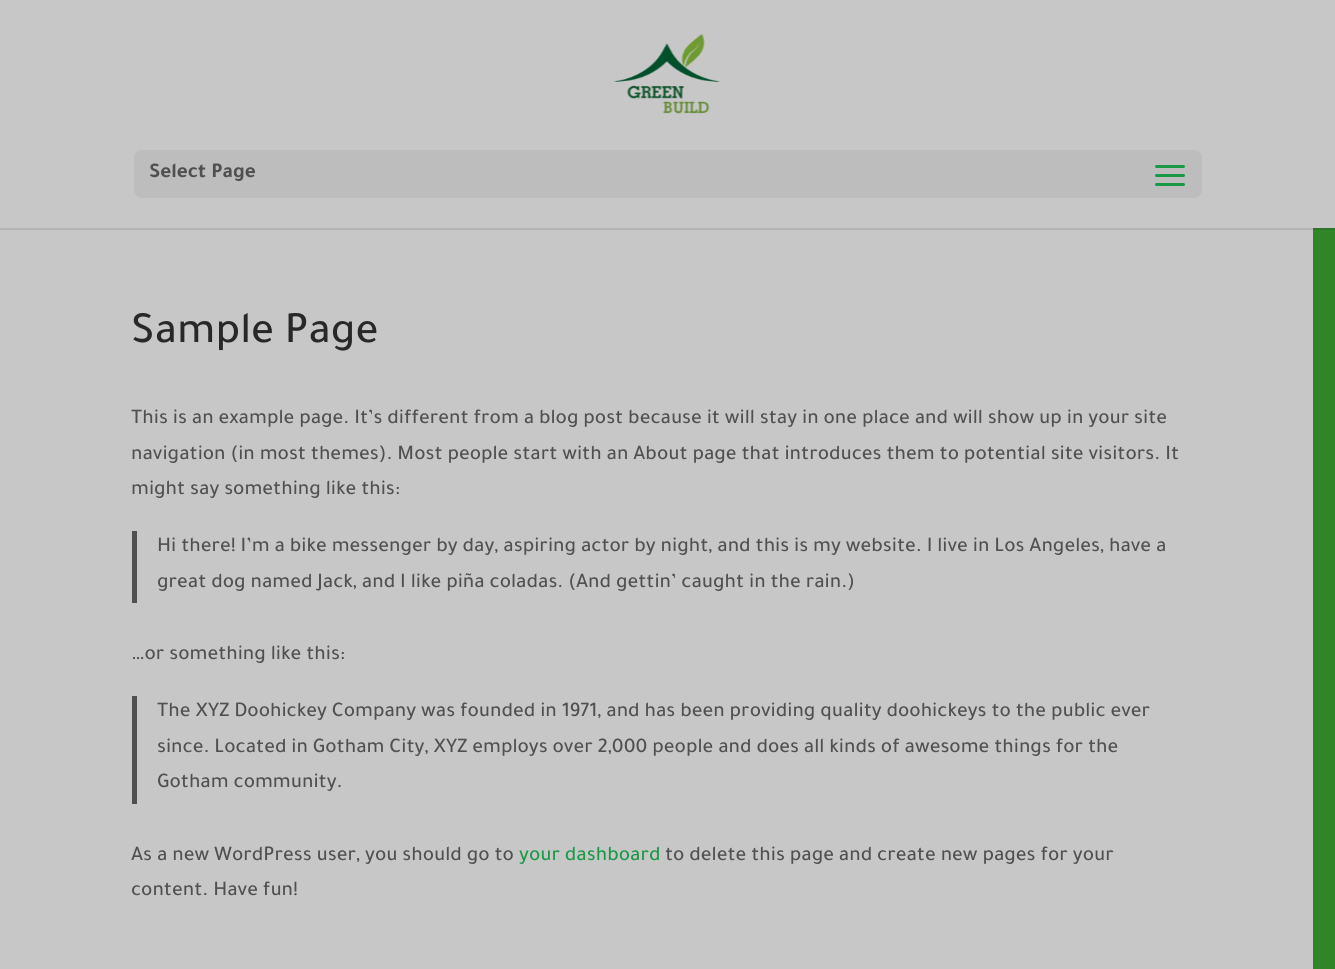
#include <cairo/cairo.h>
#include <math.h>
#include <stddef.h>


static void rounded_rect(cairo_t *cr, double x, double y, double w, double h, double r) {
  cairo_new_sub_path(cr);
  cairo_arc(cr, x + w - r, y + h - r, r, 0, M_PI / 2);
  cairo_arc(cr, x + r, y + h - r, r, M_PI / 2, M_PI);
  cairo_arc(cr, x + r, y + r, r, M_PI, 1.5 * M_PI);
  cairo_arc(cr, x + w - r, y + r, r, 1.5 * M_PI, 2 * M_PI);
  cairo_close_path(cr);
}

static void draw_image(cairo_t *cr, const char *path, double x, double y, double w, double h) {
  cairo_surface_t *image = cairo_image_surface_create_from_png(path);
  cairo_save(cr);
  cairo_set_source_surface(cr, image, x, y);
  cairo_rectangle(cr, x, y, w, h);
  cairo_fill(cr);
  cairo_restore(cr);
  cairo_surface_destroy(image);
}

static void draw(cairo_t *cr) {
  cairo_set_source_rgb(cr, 48 / 255.0, 133 / 255.0, 41 / 255.0);
  cairo_paint(cr);
  cairo_set_source_rgb(cr, 44 / 255.0, 119 / 255.0, 37 / 255.0);
  cairo_rectangle(cr, 1313, 228, 22, 2);
  cairo_fill(cr);
  cairo_set_source_rgb(cr, 199 / 255.0, 199 / 255.0, 199 / 255.0);
  cairo_rectangle(cr, 0, 0, 1335, 228);
  cairo_fill(cr);
  draw_image(cr, "images/1.png", 613, 34, 107, 80);
  cairo_set_source_rgb(cr, 189 / 255.0, 189 / 255.0, 189 / 255.0);
  rounded_rect(cr, 134, 150, 1068, 48, 8);
  cairo_fill(cr);
  draw_image(cr, "images/2.png", 1155, 165, 30, 21);
  cairo_set_source_rgb(cr, 199 / 255.0, 199 / 255.0, 199 / 255.0);
  cairo_rectangle(cr, 0, 230, 1313, 739);
  cairo_fill(cr);
  cairo_set_source_rgb(cr, 179 / 255.0, 179 / 255.0, 179 / 255.0);
  cairo_rectangle(cr, 0, 228, 1313, 2);
  cairo_fill(cr);
  cairo_set_source_rgb(cr, 80 / 255.0, 80 / 255.0, 80 / 255.0);
  cairo_rectangle(cr, 132, 531, 5, 72);
  cairo_fill(cr);
  cairo_rectangle(cr, 132, 696, 5, 108);
  cairo_fill(cr);
  cairo_select_font_face(cr, "Tajawal", CAIRO_FONT_SLANT_NORMAL, CAIRO_FONT_WEIGHT_BOLD);
  cairo_set_font_size(cr, 21);
  cairo_move_to(cr, 149, 177);
  cairo_show_text(cr, "Select Page");
  cairo_select_font_face(cr, "Tajawal Medium", CAIRO_FONT_SLANT_NORMAL, CAIRO_FONT_WEIGHT_NORMAL);
  cairo_set_font_size(cr, 45);
  cairo_set_source_rgb(cr, 40 / 255.0, 40 / 255.0, 40 / 255.0);
  cairo_move_to(cr, 131, 342);
  cairo_show_text(cr, "Sample Page");
  cairo_set_font_size(cr, 21);
  cairo_set_source_rgb(cr, 80 / 255.0, 80 / 255.0, 80 / 255.0);
  cairo_move_to(cr, 131, 423);
  cairo_show_text(cr, "This is an example page. It’s different from a blog post because it will stay in one place and will show up in your site");
  cairo_move_to(cr, 131, 459);
  cairo_show_text(cr, "navigation (in most themes). Most people start with an About page that introduces them to potential site visitors. It");
  cairo_move_to(cr, 131, 494);
  cairo_show_text(cr, "might say something like this:");
  cairo_move_to(cr, 157, 551);
  cairo_show_text(cr, "Hi there! I’m a bike messenger by day, aspiring actor by night, and this is my website. I live in Los Angeles, have a");
  cairo_move_to(cr, 157, 587);
  cairo_show_text(cr, "great dog named Jack, and I like piña coladas. (And gettin’ caught in the rain.)");
  cairo_move_to(cr, 131, 659);
  cairo_show_text(cr, "…or something like this:");
  cairo_move_to(cr, 157, 716);
  cairo_show_text(cr, "The XYZ Doohickey Company was founded in 1971, and has been providing quality doohickeys to the public ever");
  cairo_move_to(cr, 157, 752);
  cairo_show_text(cr, "since. Located in Gotham City, XYZ employs over 2,000 people and does all kinds of awesome things for the");
  cairo_move_to(cr, 157, 787);
  cairo_show_text(cr, "Gotham community.");
  cairo_move_to(cr, 131, 860);
  cairo_show_text(cr, "As a new WordPress user, you should go to");
  cairo_set_source_rgb(cr, 26 / 255.0, 153 / 255.0, 68 / 255.0);
  cairo_move_to(cr, 519, 860);
  cairo_show_text(cr, "your dashboard");
  cairo_set_source_rgb(cr, 80 / 255.0, 80 / 255.0, 80 / 255.0);
  cairo_move_to(cr, 665, 860);
  cairo_show_text(cr, "to delete this page and create new pages for your");
  cairo_move_to(cr, 131, 895);
  cairo_show_text(cr, "content. Have fun!");
}

int main(void) {
  cairo_surface_t *surface = cairo_image_surface_create(CAIRO_FORMAT_RGB24, 1335, 969);
  cairo_t *cr = cairo_create(surface);
  cairo_font_options_t *options = cairo_font_options_create();
  cairo_font_options_set_hint_metrics(options, CAIRO_HINT_METRICS_OFF);
  cairo_font_options_set_hint_style(options, CAIRO_HINT_STYLE_NONE);
  cairo_set_font_options(cr, options);
  cairo_set_miter_limit(cr, 4);
  draw(cr);
  cairo_surface_write_to_png(surface, "out.png");
  cairo_font_options_destroy(options);
  cairo_destroy(cr);
  cairo_surface_destroy(surface);
  return 0;
}
